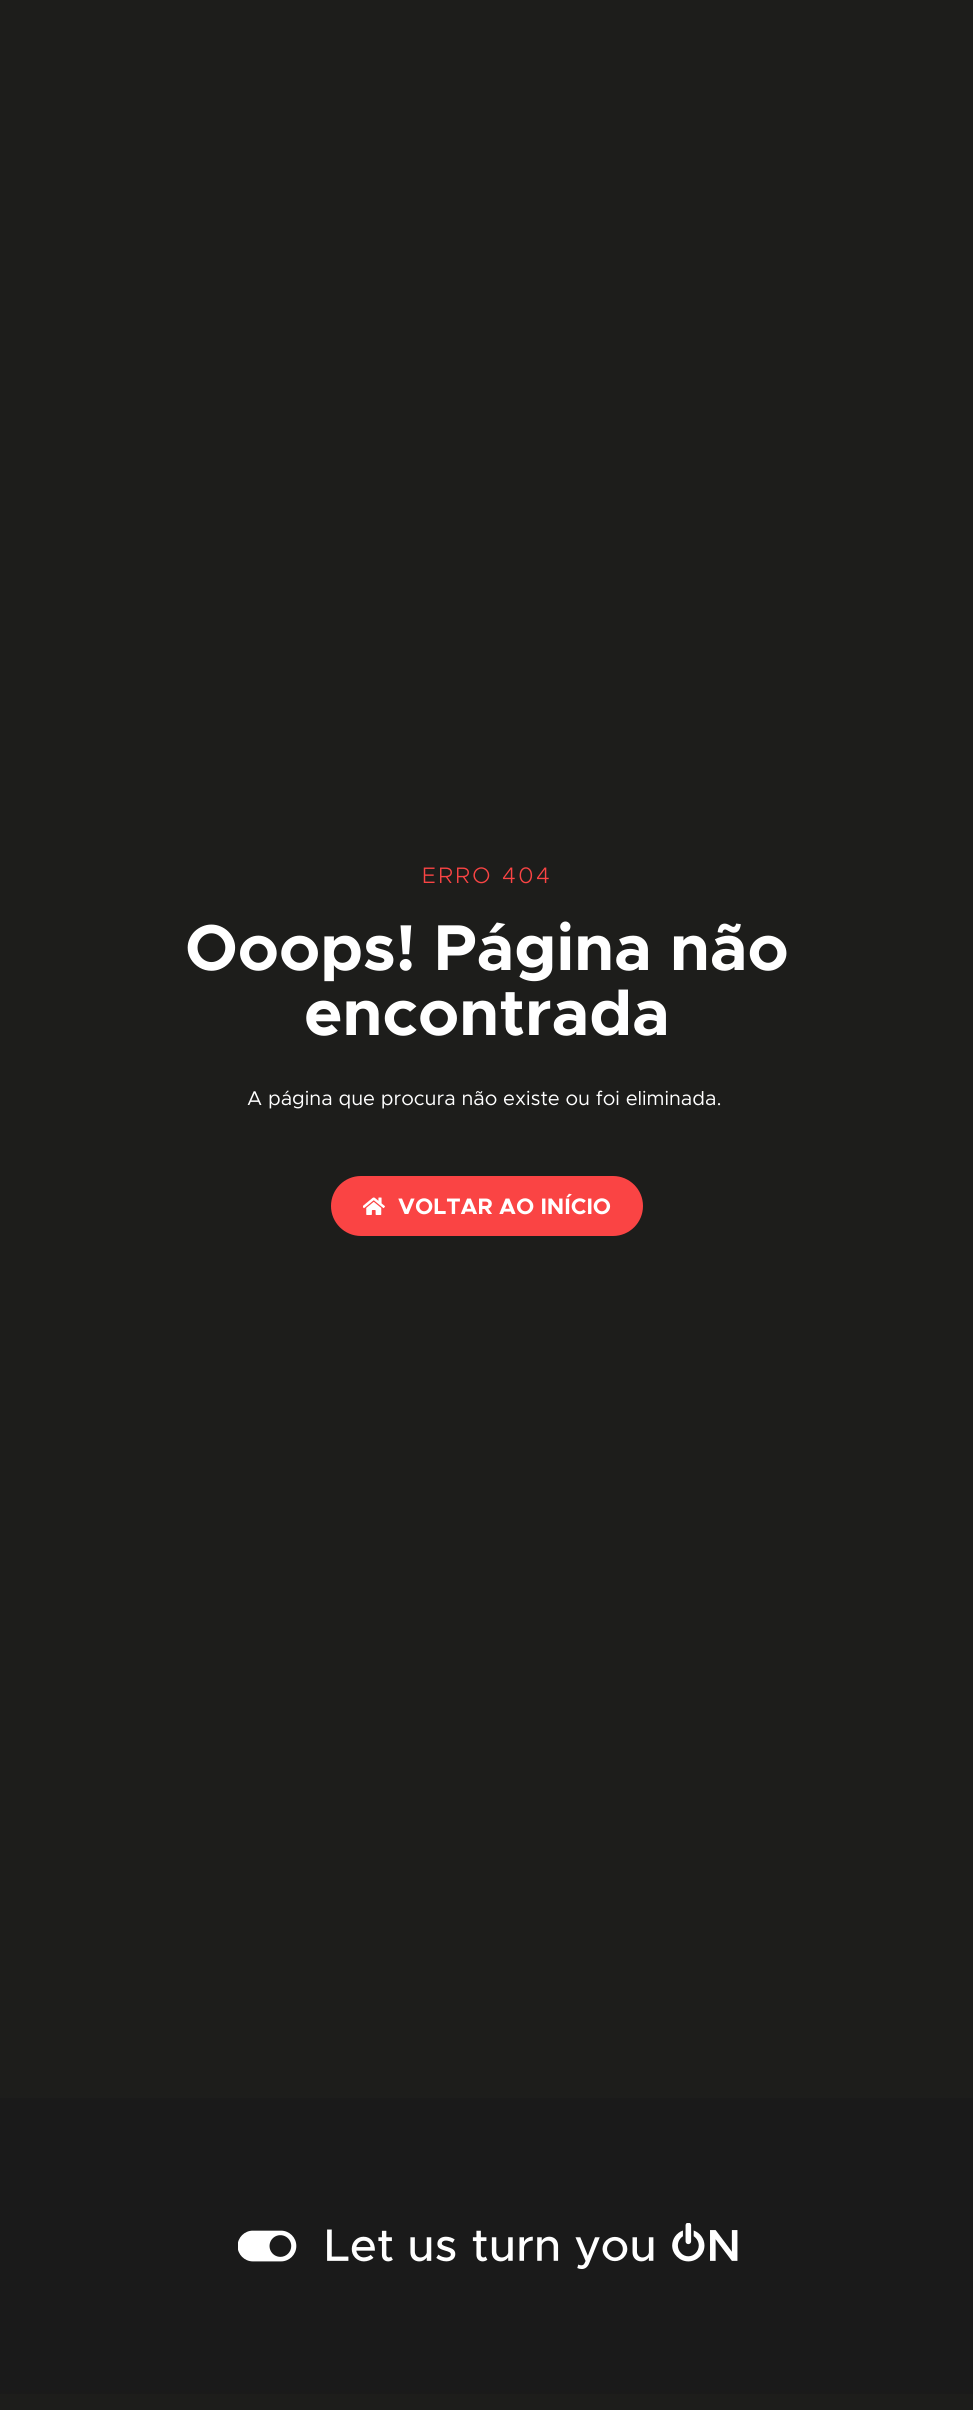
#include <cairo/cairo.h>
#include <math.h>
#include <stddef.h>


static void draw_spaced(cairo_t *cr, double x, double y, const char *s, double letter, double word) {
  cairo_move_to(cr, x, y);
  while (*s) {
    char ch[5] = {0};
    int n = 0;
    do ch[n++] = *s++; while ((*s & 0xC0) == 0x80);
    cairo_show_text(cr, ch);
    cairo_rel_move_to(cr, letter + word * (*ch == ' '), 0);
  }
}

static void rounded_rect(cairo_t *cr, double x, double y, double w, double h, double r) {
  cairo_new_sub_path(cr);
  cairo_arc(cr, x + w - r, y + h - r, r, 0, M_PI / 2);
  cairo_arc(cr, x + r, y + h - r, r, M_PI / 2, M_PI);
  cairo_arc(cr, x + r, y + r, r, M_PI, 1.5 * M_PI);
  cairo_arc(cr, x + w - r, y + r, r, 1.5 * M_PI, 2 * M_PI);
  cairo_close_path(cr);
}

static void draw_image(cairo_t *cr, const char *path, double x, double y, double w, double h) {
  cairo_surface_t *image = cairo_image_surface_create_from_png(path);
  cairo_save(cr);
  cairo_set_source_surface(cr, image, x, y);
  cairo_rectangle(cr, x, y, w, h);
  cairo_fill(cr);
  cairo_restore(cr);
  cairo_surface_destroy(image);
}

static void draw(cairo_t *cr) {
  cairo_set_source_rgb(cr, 29 / 255.0, 29 / 255.0, 27 / 255.0);
  cairo_paint(cr);
  cairo_set_source_rgb(cr, 250 / 255.0, 68 / 255.0, 68 / 255.0);
  rounded_rect(cr, 331, 1176, 312, 60, 30);
  cairo_fill(cr);
  draw_image(cr, "images/1.png", 363, 1197, 22, 18);
  cairo_set_source_rgb(cr, 26 / 255.0, 26 / 255.0, 26 / 255.0);
  cairo_rectangle(cr, 0, 2098, 973, 296);
  cairo_fill(cr);
  draw_image(cr, "images/2.png", 238, 2223, 500, 46);
  cairo_select_font_face(cr, "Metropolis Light", CAIRO_FONT_SLANT_NORMAL, CAIRO_FONT_WEIGHT_NORMAL);
  cairo_set_font_size(cr, 22.5);
  cairo_set_source_rgb(cr, 250 / 255.0, 68 / 255.0, 68 / 255.0);
  draw_spaced(cr, 422, 883, "ERRO 404", 2.5, 0);
  cairo_select_font_face(cr, "Metropolis", CAIRO_FONT_SLANT_NORMAL, CAIRO_FONT_WEIGHT_BOLD);
  cairo_set_font_size(cr, 65);
  cairo_set_source_rgb(cr, 1, 1, 1);
  cairo_move_to(cr, 185, 970);
  cairo_show_text(cr, "Ooops! Página não");
  cairo_move_to(cr, 304, 1035);
  cairo_show_text(cr, "encontrada");
  cairo_select_font_face(cr, "Metropolis", CAIRO_FONT_SLANT_NORMAL, CAIRO_FONT_WEIGHT_NORMAL);
  cairo_set_font_size(cr, 20);
  cairo_move_to(cr, 247, 1105);
  cairo_show_text(cr, "A página que procura não existe ou foi eliminada.");
  cairo_select_font_face(cr, "Metropolis", CAIRO_FONT_SLANT_NORMAL, CAIRO_FONT_WEIGHT_BOLD);
  cairo_set_font_size(cr, 22.5);
  cairo_move_to(cr, 398, 1214);
  cairo_show_text(cr, "VOLTAR AO INÍCIO");
}

int main(void) {
  cairo_surface_t *surface = cairo_image_surface_create(CAIRO_FORMAT_RGB24, 973, 2410);
  cairo_t *cr = cairo_create(surface);
  cairo_font_options_t *options = cairo_font_options_create();
  cairo_font_options_set_hint_metrics(options, CAIRO_HINT_METRICS_OFF);
  cairo_font_options_set_hint_style(options, CAIRO_HINT_STYLE_NONE);
  cairo_set_font_options(cr, options);
  cairo_set_miter_limit(cr, 4);
  draw(cr);
  cairo_surface_write_to_png(surface, "out.png");
  cairo_font_options_destroy(options);
  cairo_destroy(cr);
  cairo_surface_destroy(surface);
  return 0;
}
